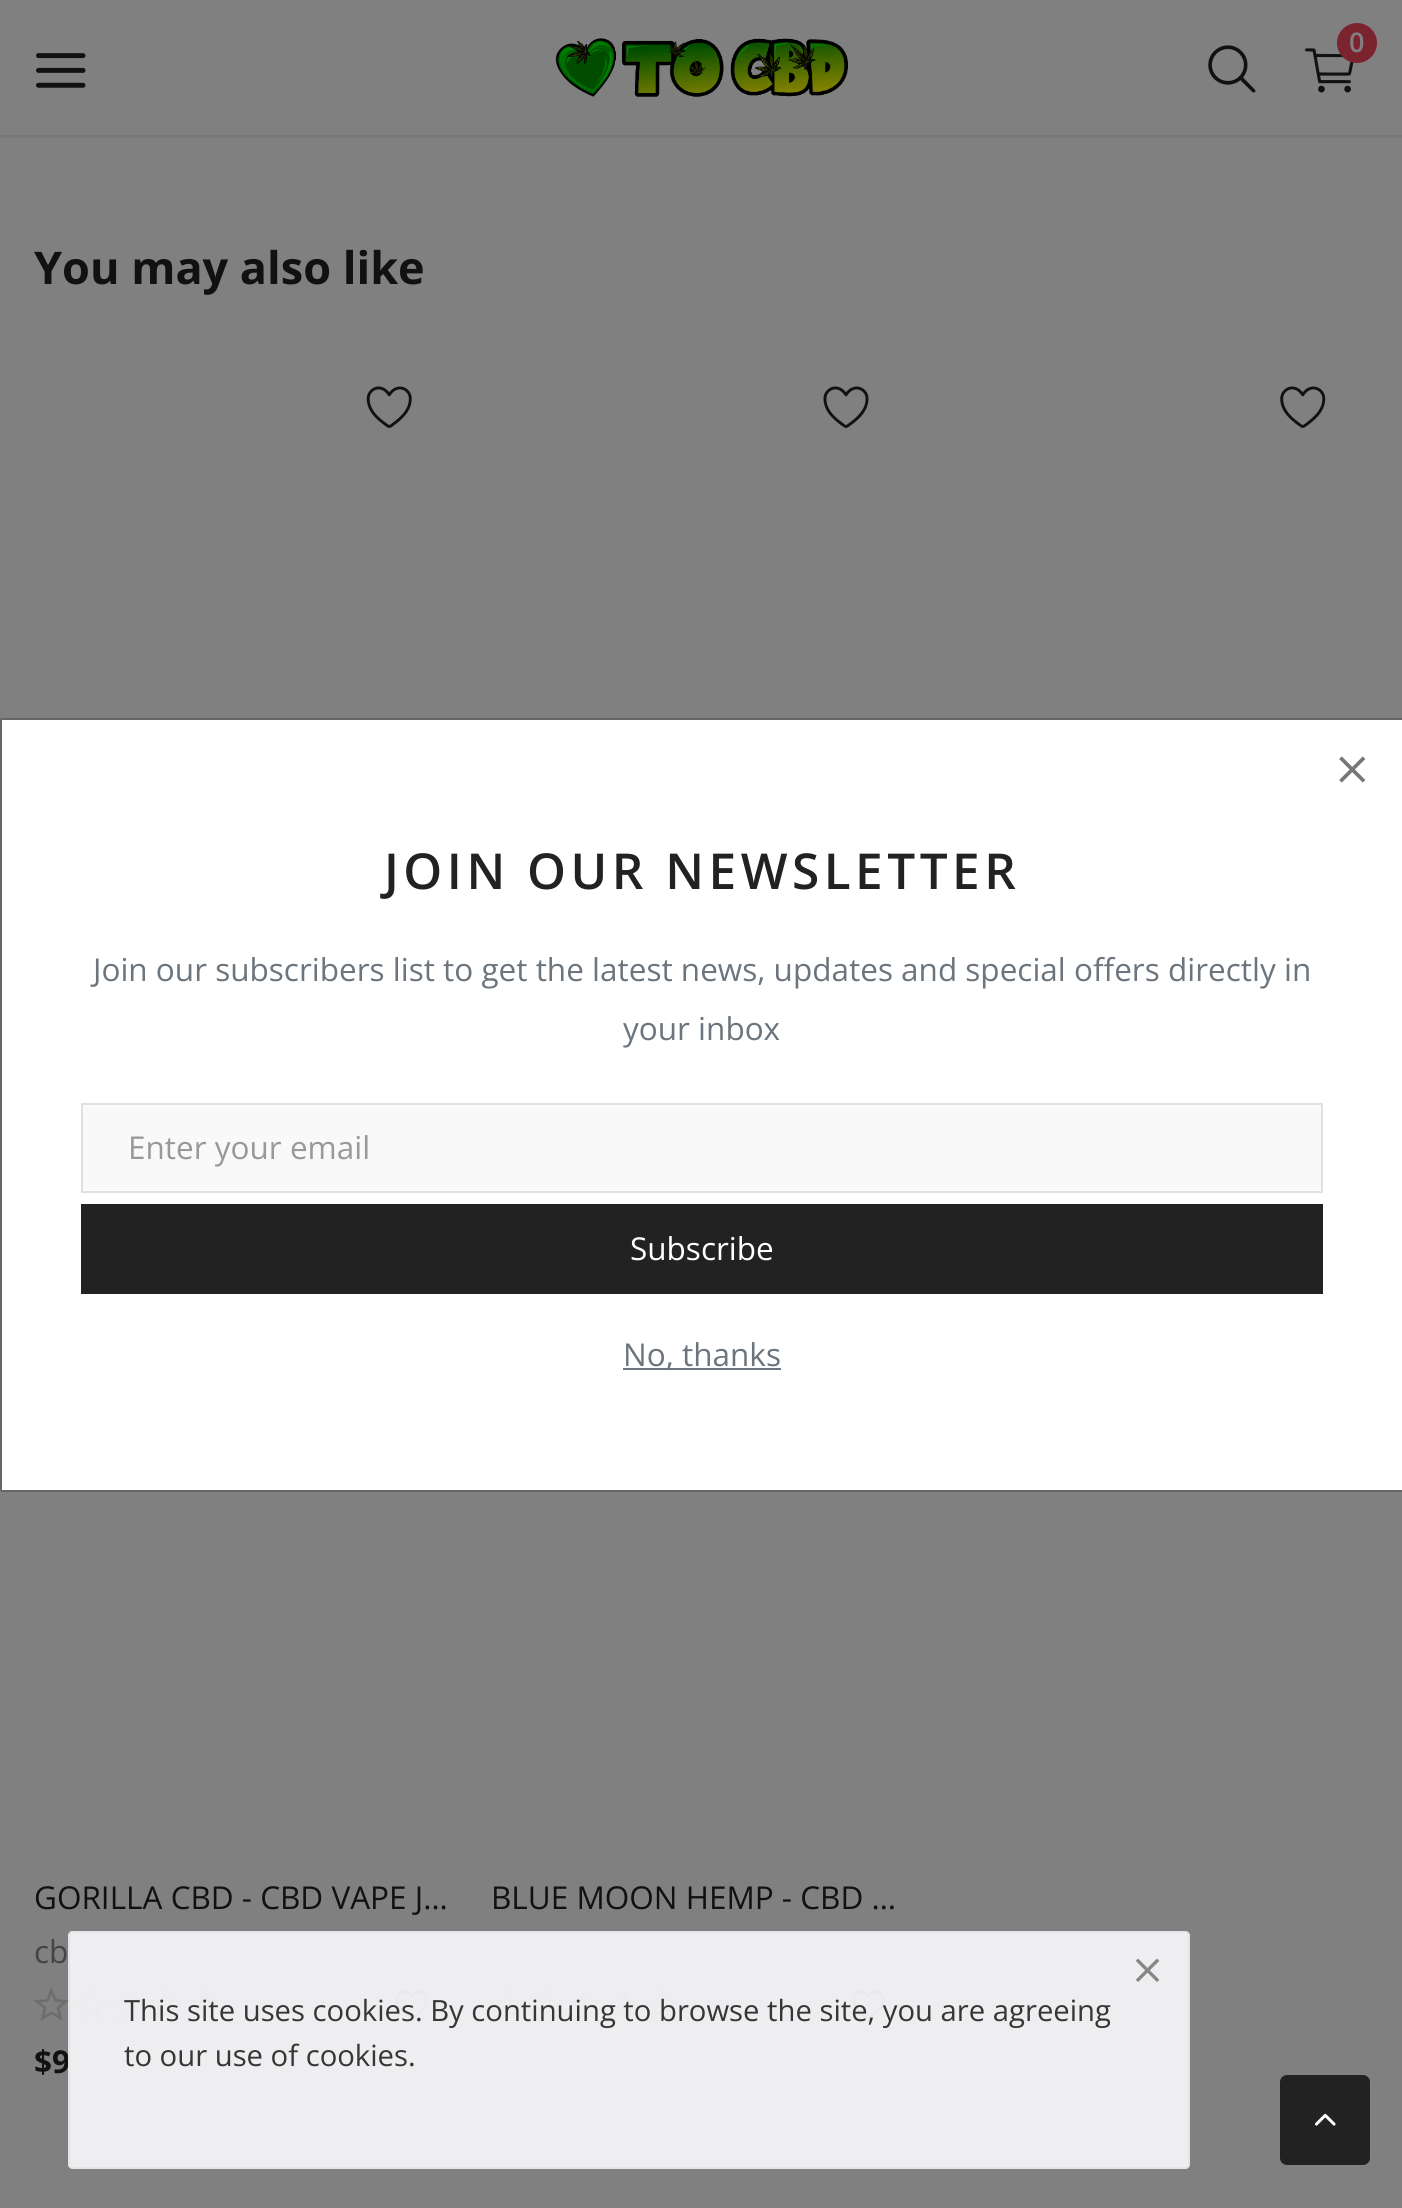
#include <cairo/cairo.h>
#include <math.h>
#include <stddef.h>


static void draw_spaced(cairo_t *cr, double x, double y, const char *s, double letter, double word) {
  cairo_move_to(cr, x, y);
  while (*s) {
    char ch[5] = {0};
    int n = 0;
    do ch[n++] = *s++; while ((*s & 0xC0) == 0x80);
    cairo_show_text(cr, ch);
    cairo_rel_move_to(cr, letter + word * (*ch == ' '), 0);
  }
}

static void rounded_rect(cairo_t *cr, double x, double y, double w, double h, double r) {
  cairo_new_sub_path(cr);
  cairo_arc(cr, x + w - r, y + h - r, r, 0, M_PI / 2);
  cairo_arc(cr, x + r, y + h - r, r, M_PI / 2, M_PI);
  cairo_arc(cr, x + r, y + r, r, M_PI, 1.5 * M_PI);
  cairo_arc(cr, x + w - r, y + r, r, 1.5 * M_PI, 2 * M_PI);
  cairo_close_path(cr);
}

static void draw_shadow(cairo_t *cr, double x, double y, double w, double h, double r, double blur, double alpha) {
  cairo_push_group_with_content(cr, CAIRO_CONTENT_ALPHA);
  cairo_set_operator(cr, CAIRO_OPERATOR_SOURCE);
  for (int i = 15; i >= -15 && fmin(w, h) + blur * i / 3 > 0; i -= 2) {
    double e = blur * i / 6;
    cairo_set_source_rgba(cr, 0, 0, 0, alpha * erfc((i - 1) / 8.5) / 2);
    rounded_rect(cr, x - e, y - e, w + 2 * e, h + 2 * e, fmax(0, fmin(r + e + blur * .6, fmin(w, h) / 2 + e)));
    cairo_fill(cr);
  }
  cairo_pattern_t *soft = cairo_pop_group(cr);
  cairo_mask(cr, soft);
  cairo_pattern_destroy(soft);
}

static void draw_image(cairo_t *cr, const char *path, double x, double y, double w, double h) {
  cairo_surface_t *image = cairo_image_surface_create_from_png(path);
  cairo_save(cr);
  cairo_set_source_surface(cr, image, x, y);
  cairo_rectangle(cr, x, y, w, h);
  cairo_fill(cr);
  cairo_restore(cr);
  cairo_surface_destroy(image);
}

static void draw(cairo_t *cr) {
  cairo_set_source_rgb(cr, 128 / 255.0, 128 / 255.0, 128 / 255.0);
  cairo_paint(cr);
  cairo_set_source_rgb(cr, 0, 0, 0);
  draw_shadow(cr, 0, 2, 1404, 135, 0, 1, 0.08);
  cairo_set_source_rgb(cr, 128 / 255.0, 128 / 255.0, 128 / 255.0);
  cairo_rectangle(cr, 0, 1, 1402, 134);
  cairo_fill(cr);
  draw_image(cr, "images/1.png", 36, 53, 50, 35);
  draw_image(cr, "images/2.png", 555, 38, 294, 59);
  draw_image(cr, "images/3.png", 1208, 45, 48, 48);
  draw_image(cr, "images/4.png", 1305, 48, 49, 45);
  cairo_set_source_rgb(cr, 123 / 255.0, 35 / 255.0, 47 / 255.0);
  cairo_arc(cr, 1357, 43, 20, 0, 2 * M_PI);
  cairo_fill(cr);
  draw_image(cr, "images/5.png", 366, 386, 46, 42);
  draw_image(cr, "images/6.png", 823, 386, 46, 42);
  draw_image(cr, "images/7.png", 1280, 386, 46, 42);
  draw_image(cr, "images/8.png", 34, 1987, 35, 34);
  draw_image(cr, "images/9.png", 72, 1987, 36, 34);
  draw_image(cr, "images/10.png", 110, 1988, 36, 33);
  draw_image(cr, "images/11.png", 148, 1987, 36, 34);
  draw_image(cr, "images/8.png", 187, 1987, 35, 34);
  draw_image(cr, "images/12.png", 396, 1990, 32, 30);
  draw_image(cr, "images/13.png", 491, 1987, 35, 34);
  draw_image(cr, "images/8.png", 529, 1987, 35, 34);
  draw_image(cr, "images/9.png", 567, 1987, 36, 34);
  draw_image(cr, "images/10.png", 605, 1988, 36, 33);
  draw_image(cr, "images/11.png", 643, 1987, 36, 34);
  draw_image(cr, "images/14.png", 852, 1990, 33, 30);
  cairo_set_source_rgb(cr, 1, 1, 1);
  rounded_rect(cr, 1, 719, 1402, 772, 1);
  cairo_fill_preserve(cr);
  cairo_set_source_rgb(cr, 102 / 255.0, 102 / 255.0, 102 / 255.0);
  cairo_stroke(cr);
  draw_image(cr, "images/15.png", 1339, 756, 27, 27);
  cairo_set_source_rgb(cr, 249 / 255.0, 249 / 255.0, 249 / 255.0);
  cairo_rectangle(cr, 83, 1105, 1238, 85);
  cairo_fill(cr);
  cairo_rectangle(cr, 82, 1104, 1240, 88);
  cairo_set_source_rgb(cr, 223 / 255.0, 224 / 255.0, 230 / 255.0);
  cairo_stroke(cr);
  cairo_set_source_rgb(cr, 34 / 255.0, 34 / 255.0, 34 / 255.0);
  cairo_rectangle(cr, 81, 1204, 1242, 90);
  cairo_fill(cr);
  cairo_set_source_rgb(cr, 108 / 255.0, 117 / 255.0, 125 / 255.0);
  cairo_rectangle(cr, 623, 1368, 158, 2);
  cairo_fill(cr);
  cairo_set_source_rgb(cr, 34 / 255.0, 34 / 255.0, 34 / 255.0);
  rounded_rect(cr, 1280, 2075, 90, 90, 7);
  cairo_fill(cr);
  draw_image(cr, "images/17.png", 1314, 2113, 22, 13);
  cairo_select_font_face(cr, "Open Sans SemiBold", CAIRO_FONT_SLANT_NORMAL, CAIRO_FONT_WEIGHT_NORMAL);
  cairo_set_font_size(cr, 27);
  cairo_set_source_rgb(cr, 128 / 255.0, 128 / 255.0, 128 / 255.0);
  cairo_move_to(cr, 1349, 52);
  cairo_show_text(cr, "0");
  cairo_select_font_face(cr, "Open Sans", CAIRO_FONT_SLANT_NORMAL, CAIRO_FONT_WEIGHT_BOLD);
  cairo_set_font_size(cr, 45);
  cairo_set_source_rgb(cr, 17 / 255.0, 17 / 255.0, 17 / 255.0);
  cairo_move_to(cr, 34, 284);
  cairo_show_text(cr, "You may also like");
  cairo_select_font_face(cr, "Open Sans", CAIRO_FONT_SLANT_NORMAL, CAIRO_FONT_WEIGHT_NORMAL);
  cairo_set_font_size(cr, 31.5);
  cairo_move_to(cr, 34, 1909);
  cairo_show_text(cr, "GORILLA CBD - CBD VAPE J…");
  cairo_set_source_rgb(cr, 68 / 255.0, 68 / 255.0, 68 / 255.0);
  cairo_move_to(cr, 34, 1963);
  cairo_show_text(cr, "cb");
  cairo_select_font_face(cr, "Open Sans", CAIRO_FONT_SLANT_NORMAL, CAIRO_FONT_WEIGHT_BOLD);
  cairo_set_source_rgb(cr, 17 / 255.0, 17 / 255.0, 17 / 255.0);
  cairo_move_to(cr, 34, 2073);
  cairo_show_text(cr, "$9");
  cairo_select_font_face(cr, "Open Sans", CAIRO_FONT_SLANT_NORMAL, CAIRO_FONT_WEIGHT_NORMAL);
  cairo_move_to(cr, 491, 1909);
  cairo_show_text(cr, "BLUE MOON HEMP - CBD …");
  cairo_select_font_face(cr, "Open Sans SemiBold", CAIRO_FONT_SLANT_NORMAL, CAIRO_FONT_WEIGHT_NORMAL);
  cairo_set_font_size(cr, 49.5);
  cairo_set_source_rgb(cr, 34 / 255.0, 34 / 255.0, 34 / 255.0);
  draw_spaced(cr, 384, 889, "JOIN OUR NEWSLETTER", 4.5, 0);
  cairo_select_font_face(cr, "Open Sans", CAIRO_FONT_SLANT_NORMAL, CAIRO_FONT_WEIGHT_NORMAL);
  cairo_set_font_size(cr, 31.5);
  cairo_set_source_rgb(cr, 108 / 255.0, 117 / 255.0, 125 / 255.0);
  cairo_move_to(cr, 93, 981);
  cairo_show_text(cr, "Join our subscribers list to get the latest news, updates and special offers directly in");
  cairo_move_to(cr, 623, 1040);
  cairo_show_text(cr, "your inbox");
  cairo_set_source_rgb(cr, 153 / 255.0, 153 / 255.0, 153 / 255.0);
  cairo_move_to(cr, 128, 1159);
  cairo_show_text(cr, "Enter your email");
  cairo_set_source_rgb(cr, 1, 1, 1);
  cairo_move_to(cr, 630, 1260);
  cairo_show_text(cr, "Subscribe");
  cairo_set_source_rgb(cr, 108 / 255.0, 117 / 255.0, 125 / 255.0);
  cairo_move_to(cr, 623, 1366);
  cairo_show_text(cr, "No, thanks");
  cairo_set_source_rgba(cr, 250 / 255.0, 250 / 255.0, 252 / 255.0, 0.9);
  rounded_rect(cr, 68, 1931, 1122, 238, 5);
  cairo_fill(cr);
  rounded_rect(cr, 69, 1932, 1120, 236, 4);
  cairo_set_source_rgba(cr, 229 / 255.0, 229 / 255.0, 232 / 255.0, 0.9);
  cairo_stroke(cr);
  draw_image(cr, "images/16.png", 1135, 1958, 25, 24);
  cairo_set_font_size(cr, 29.25);
  cairo_set_source_rgb(cr, 54 / 255.0, 54 / 255.0, 55 / 255.0);
  cairo_move_to(cr, 124, 2021);
  cairo_show_text(cr, "This site uses cookies. By continuing to browse the site, you are agreeing");
  cairo_move_to(cr, 124, 2066);
  cairo_show_text(cr, "to our use of cookies.");
}

int main(void) {
  cairo_surface_t *surface = cairo_image_surface_create(CAIRO_FORMAT_RGB24, 1402, 2208);
  cairo_t *cr = cairo_create(surface);
  cairo_font_options_t *options = cairo_font_options_create();
  cairo_font_options_set_hint_metrics(options, CAIRO_HINT_METRICS_OFF);
  cairo_font_options_set_hint_style(options, CAIRO_HINT_STYLE_NONE);
  cairo_set_font_options(cr, options);
  cairo_set_miter_limit(cr, 4);
  draw(cr);
  cairo_surface_write_to_png(surface, "out.png");
  cairo_font_options_destroy(options);
  cairo_destroy(cr);
  cairo_surface_destroy(surface);
  return 0;
}
